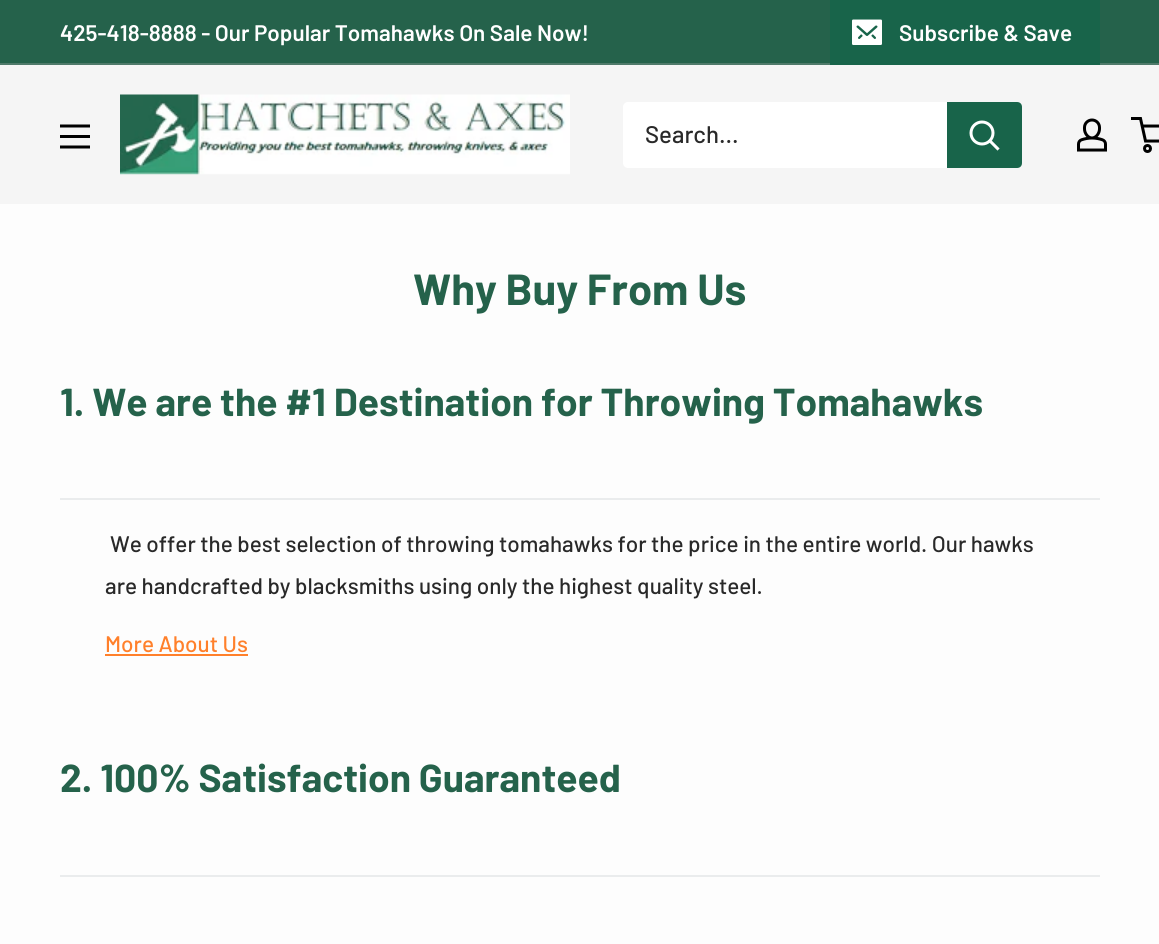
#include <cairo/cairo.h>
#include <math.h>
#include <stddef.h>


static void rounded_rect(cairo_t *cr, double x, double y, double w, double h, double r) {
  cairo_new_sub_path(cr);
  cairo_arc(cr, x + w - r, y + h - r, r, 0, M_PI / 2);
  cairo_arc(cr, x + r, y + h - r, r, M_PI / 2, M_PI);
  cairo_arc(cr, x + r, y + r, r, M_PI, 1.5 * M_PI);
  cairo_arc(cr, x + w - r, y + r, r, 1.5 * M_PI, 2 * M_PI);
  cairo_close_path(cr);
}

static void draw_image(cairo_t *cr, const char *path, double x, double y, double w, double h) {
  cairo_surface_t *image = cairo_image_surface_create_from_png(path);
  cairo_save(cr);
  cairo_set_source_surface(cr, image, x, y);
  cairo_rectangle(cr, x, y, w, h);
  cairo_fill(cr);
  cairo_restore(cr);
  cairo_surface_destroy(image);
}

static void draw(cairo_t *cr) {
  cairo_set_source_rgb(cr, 253 / 255.0, 253 / 255.0, 253 / 255.0);
  cairo_paint(cr);
  cairo_set_source_rgb(cr, 37 / 255.0, 98 / 255.0, 75 / 255.0);
  cairo_rectangle(cr, 0, 0, 1159, 63);
  cairo_fill(cr);
  cairo_set_source_rgb(cr, 79 / 255.0, 122 / 255.0, 106 / 255.0);
  cairo_rectangle(cr, 0, 63, 1159, 2);
  cairo_fill(cr);
  cairo_set_source_rgb(cr, 24 / 255.0, 100 / 255.0, 74 / 255.0);
  cairo_new_path(cr);
  cairo_move_to(cr, 830, 63);
  cairo_line_to(cr, 830, 65);
  cairo_line_to(cr, 1100, 65);
  cairo_line_to(cr, 1100, 2);
  cairo_line_to(cr, 1100, 63);
  cairo_close_path(cr);
  cairo_fill(cr);
  cairo_rectangle(cr, 830, 0, 270, 63);
  cairo_fill(cr);
  draw_image(cr, "images/1.png", 852, 19, 30, 26);
  cairo_set_source_rgb(cr, 245 / 255.0, 245 / 255.0, 245 / 255.0);
  cairo_rectangle(cr, 0, 65, 1159, 139);
  cairo_fill(cr);
  draw_image(cr, "images/2.png", 60, 124, 30, 25);
  draw_image(cr, "images/3.png", 120, 94, 450, 81);
  cairo_set_source_rgb(cr, 1, 1, 1);
  rounded_rect(cr, 623, 102, 399, 66, 5);
  cairo_fill(cr);
  cairo_set_source_rgb(cr, 24 / 255.0, 100 / 255.0, 74 / 255.0);
  cairo_new_path(cr);
  cairo_move_to(cr, 947, 102);
  cairo_line_to(cr, 1017, 102);
  cairo_curve_to(cr, 1020, 102, 1022, 104, 1022, 107);
  cairo_line_to(cr, 1022, 163);
  cairo_curve_to(cr, 1022, 166, 1020, 168, 1017, 168);
  cairo_line_to(cr, 947, 168);
  cairo_close_path(cr);
  cairo_fill(cr);
  cairo_new_path(cr);
  cairo_move_to(cr, 997.5, 148.5);
  cairo_line_to(cr, 990, 141);
  cairo_set_source_rgb(cr, 1, 1, 1);
  cairo_set_line_width(cr, 3);
  cairo_set_line_cap(cr, CAIRO_LINE_CAP_SQUARE);
  cairo_stroke(cr);
  cairo_arc(cr, 982, 133, 11, 0, 2 * M_PI);
  cairo_set_line_cap(cr, CAIRO_LINE_CAP_BUTT);
  cairo_stroke(cr);
  draw_image(cr, "images/4.png", 1077, 118, 30, 34);
  cairo_arc(cr, 1147.5, 148.5, 3, 0, 2 * M_PI);
  cairo_set_source_rgb(cr, 0, 0, 0);
  cairo_stroke(cr);
  cairo_new_path(cr);
  cairo_move_to(cr, 1142, 126);
  cairo_line_to(cr, 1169.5, 126);
  cairo_line_to(cr, 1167, 141);
  cairo_line_to(cr, 1145.5, 141);
  cairo_line_to(cr, 1140.5, 118.5);
  cairo_line_to(cr, 1131, 118.5);
  cairo_stroke(cr);
  cairo_set_source_rgb(cr, 234 / 255.0, 236 / 255.0, 237 / 255.0);
  cairo_rectangle(cr, 60, 498, 1040, 2);
  cairo_fill(cr);
  cairo_set_source_rgb(cr, 1, 128 / 255.0, 43 / 255.0);
  cairo_rectangle(cr, 105, 654, 143, 2);
  cairo_fill(cr);
  cairo_set_source_rgb(cr, 234 / 255.0, 236 / 255.0, 237 / 255.0);
  cairo_rectangle(cr, 60, 875, 1040, 2);
  cairo_fill(cr);
  cairo_select_font_face(cr, "Barlow SemiBold", CAIRO_FONT_SLANT_NORMAL, CAIRO_FONT_WEIGHT_NORMAL);
  cairo_set_font_size(cr, 22.5);
  cairo_set_source_rgb(cr, 1, 1, 1);
  cairo_move_to(cr, 60, 41);
  cairo_show_text(cr, "425-418-8888 - Our Popular Tomahawks On Sale Now!");
  cairo_move_to(cr, 899, 41);
  cairo_show_text(cr, "Subscribe & Save");
  cairo_select_font_face(cr, "Barlow Medium", CAIRO_FONT_SLANT_NORMAL, CAIRO_FONT_WEIGHT_NORMAL);
  cairo_set_font_size(cr, 24);
  cairo_set_source_rgb(cr, 41 / 255.0, 41 / 255.0, 41 / 255.0);
  cairo_move_to(cr, 645, 143);
  cairo_show_text(cr, "Search...");
  cairo_select_font_face(cr, "Barlow", CAIRO_FONT_SLANT_NORMAL, CAIRO_FONT_WEIGHT_BOLD);
  cairo_set_font_size(cr, 43.5);
  cairo_set_source_rgb(cr, 37 / 255.0, 98 / 255.0, 75 / 255.0);
  cairo_move_to(cr, 413, 305);
  cairo_show_text(cr, "Why Buy From Us");
  cairo_set_font_size(cr, 39);
  cairo_move_to(cr, 60, 416);
  cairo_show_text(cr, "1. We are the #1 Destination for Throwing Tomahawks");
  cairo_select_font_face(cr, "Barlow Medium", CAIRO_FONT_SLANT_NORMAL, CAIRO_FONT_WEIGHT_NORMAL);
  cairo_set_font_size(cr, 22.5);
  cairo_set_source_rgb(cr, 41 / 255.0, 41 / 255.0, 41 / 255.0);
  cairo_move_to(cr, 110, 552);
  cairo_show_text(cr, "We offer the best selection of throwing tomahawks for the price in the entire world. Our hawks");
  cairo_move_to(cr, 105, 594);
  cairo_show_text(cr, "are handcrafted by blacksmiths using only the highest quality steel.");
  cairo_set_source_rgb(cr, 1, 128 / 255.0, 43 / 255.0);
  cairo_move_to(cr, 105, 652);
  cairo_show_text(cr, "More About Us");
  cairo_select_font_face(cr, "Barlow", CAIRO_FONT_SLANT_NORMAL, CAIRO_FONT_WEIGHT_BOLD);
  cairo_set_font_size(cr, 39);
  cairo_set_source_rgb(cr, 37 / 255.0, 98 / 255.0, 75 / 255.0);
  cairo_move_to(cr, 60, 792);
  cairo_show_text(cr, "2. 100% Satisfaction Guaranteed");
}

int main(void) {
  cairo_surface_t *surface = cairo_image_surface_create(CAIRO_FORMAT_RGB24, 1159, 944);
  cairo_t *cr = cairo_create(surface);
  cairo_font_options_t *options = cairo_font_options_create();
  cairo_font_options_set_hint_metrics(options, CAIRO_HINT_METRICS_OFF);
  cairo_font_options_set_hint_style(options, CAIRO_HINT_STYLE_NONE);
  cairo_set_font_options(cr, options);
  cairo_set_miter_limit(cr, 4);
  draw(cr);
  cairo_surface_write_to_png(surface, "out.png");
  cairo_font_options_destroy(options);
  cairo_destroy(cr);
  cairo_surface_destroy(surface);
  return 0;
}
